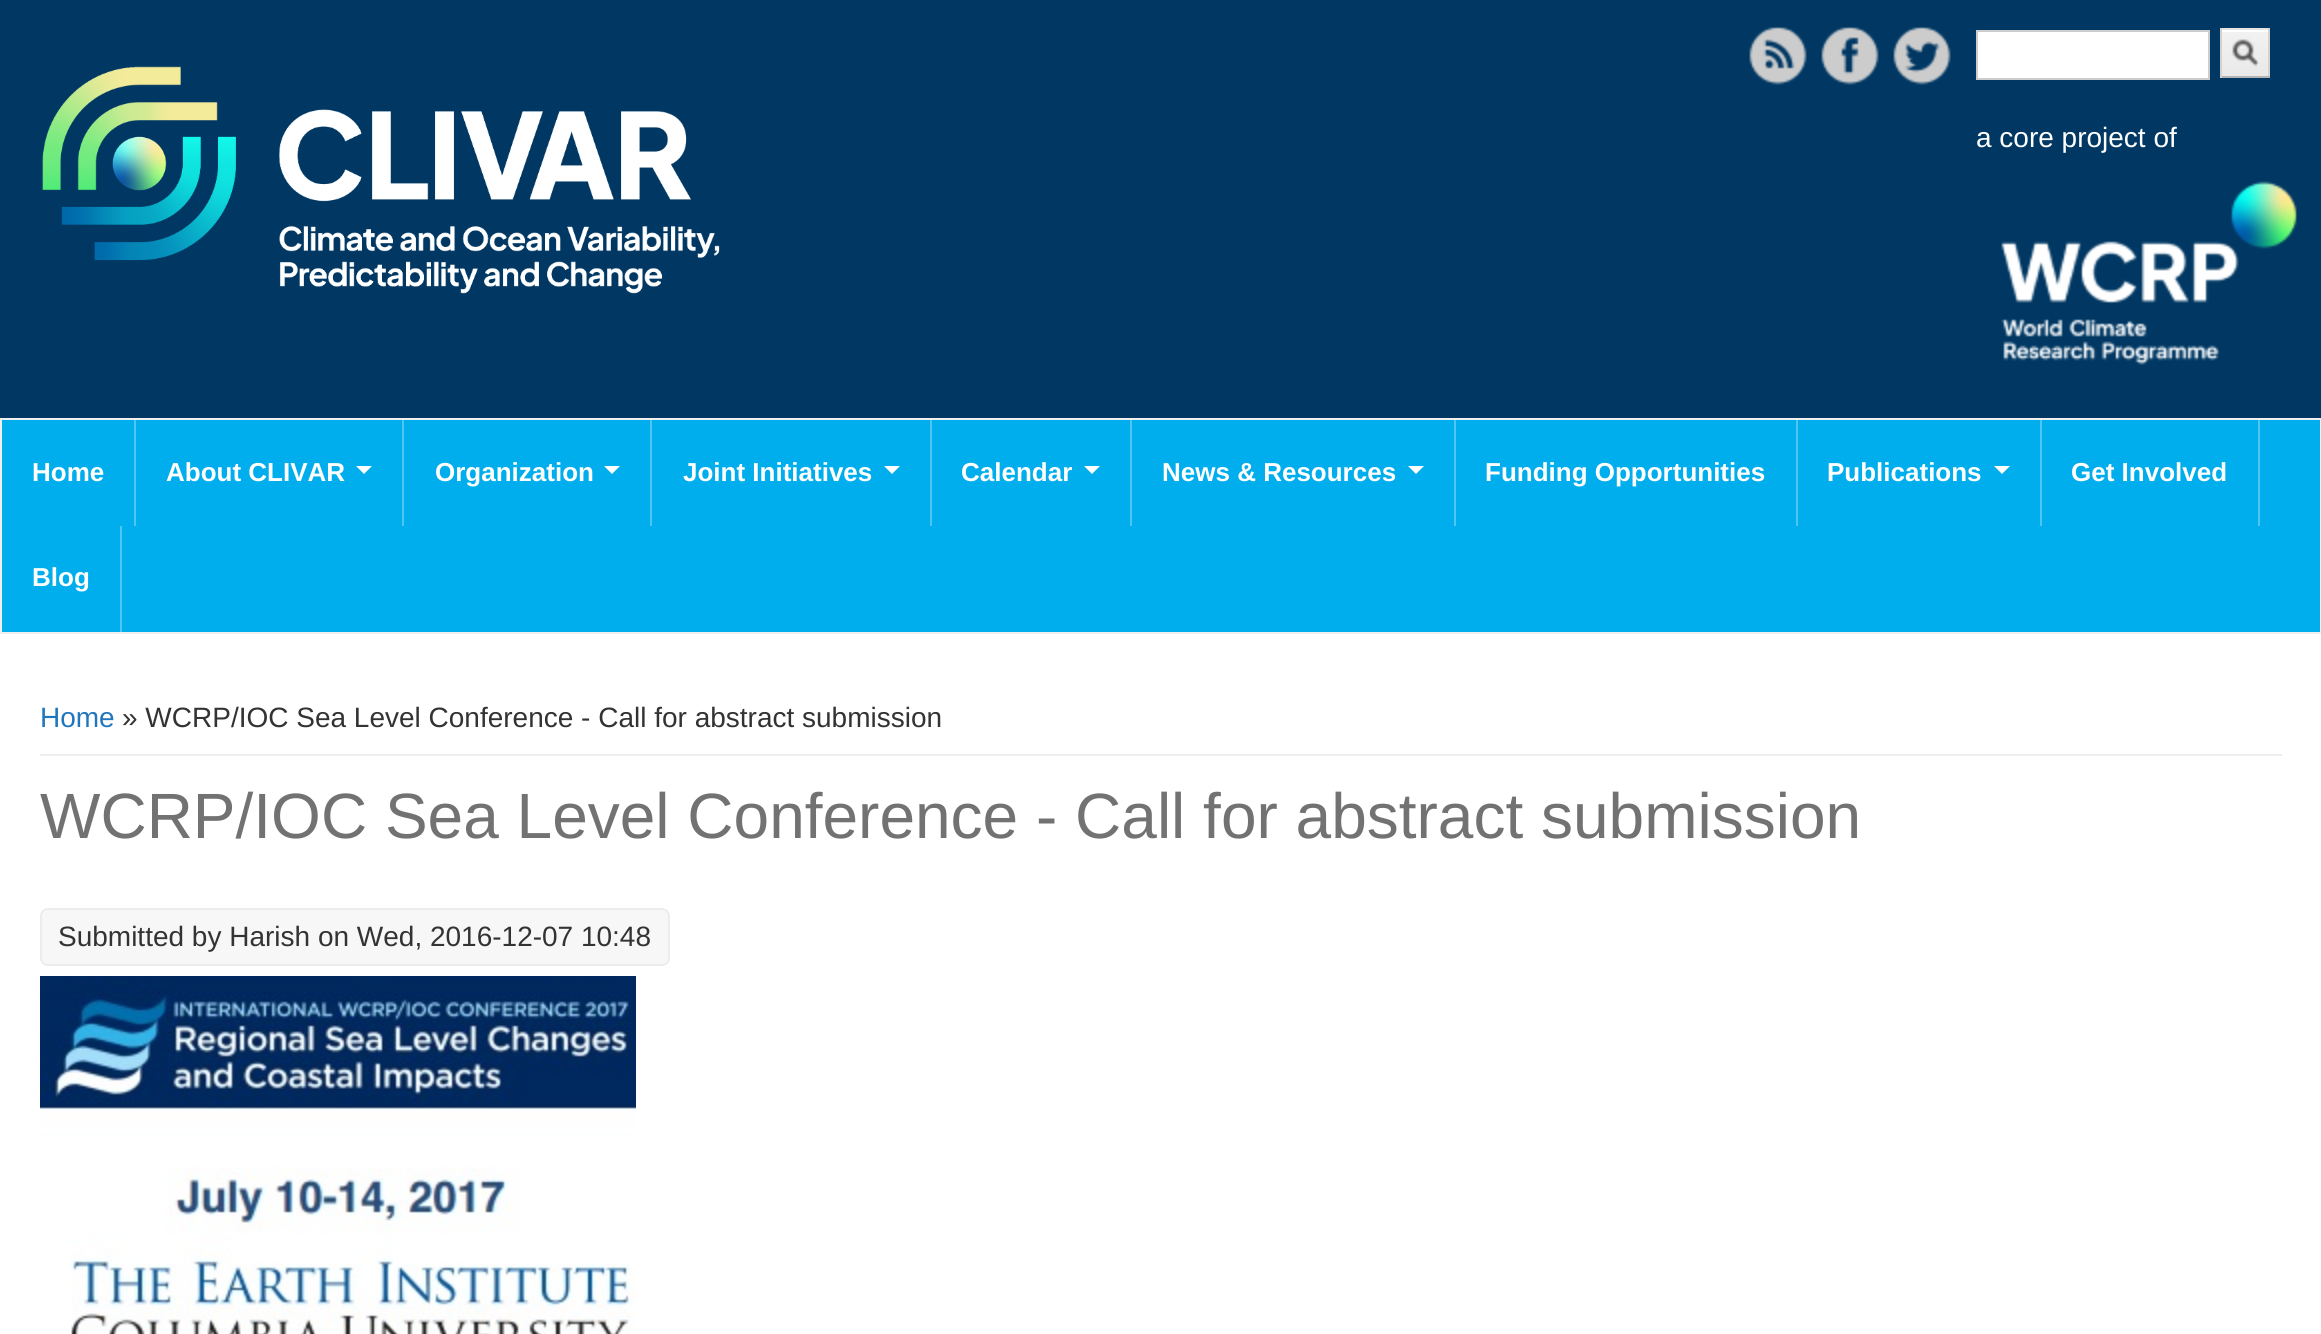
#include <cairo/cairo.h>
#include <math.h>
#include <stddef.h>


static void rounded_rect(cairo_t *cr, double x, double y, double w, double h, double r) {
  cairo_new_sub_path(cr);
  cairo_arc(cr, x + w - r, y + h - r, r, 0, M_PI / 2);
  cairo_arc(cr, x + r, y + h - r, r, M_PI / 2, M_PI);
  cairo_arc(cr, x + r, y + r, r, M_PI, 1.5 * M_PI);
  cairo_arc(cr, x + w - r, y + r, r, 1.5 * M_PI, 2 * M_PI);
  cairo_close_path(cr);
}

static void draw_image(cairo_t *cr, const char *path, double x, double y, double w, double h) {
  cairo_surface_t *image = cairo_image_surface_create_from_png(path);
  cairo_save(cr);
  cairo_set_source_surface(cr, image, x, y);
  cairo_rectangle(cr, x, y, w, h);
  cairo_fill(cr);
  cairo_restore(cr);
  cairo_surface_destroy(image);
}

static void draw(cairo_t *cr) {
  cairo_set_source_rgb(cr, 1, 1, 1);
  cairo_paint(cr);
  cairo_set_source_rgb(cr, 1 / 255.0, 56 / 255.0, 99 / 255.0);
  cairo_rectangle(cr, 0, 0, 2321, 418);
  cairo_fill(cr);
  draw_image(cr, "images/1.png", 42, 66, 678, 228);
  draw_image(cr, "images/2.png", 1749, 26, 58, 59);
  draw_image(cr, "images/3.png", 1821, 26, 58, 59);
  draw_image(cr, "images/4.png", 1893, 26, 58, 59);
  cairo_set_source_rgb(cr, 1, 1, 1);
  cairo_rectangle(cr, 1977, 31, 232, 48);
  cairo_fill_preserve(cr);
  cairo_set_source_rgb(cr, 204 / 255.0, 204 / 255.0, 204 / 255.0);
  cairo_stroke(cr);
  draw_image(cr, "images/5.png", 2222, 32, 46, 44);
  cairo_set_source_rgb(cr, 1, 1, 1);
  cairo_rectangle(cr, 2222, 30, 46, 2);
  cairo_fill(cr);
  cairo_set_source_rgb(cr, 228 / 255.0, 228 / 255.0, 228 / 255.0);
  cairo_rectangle(cr, 2220, 28, 50, 2);
  cairo_fill(cr);
  cairo_set_source_rgb(cr, 210 / 255.0, 210 / 255.0, 210 / 255.0);
  cairo_rectangle(cr, 2268, 28, 2, 50);
  cairo_fill(cr);
  cairo_set_source_rgb(cr, 180 / 255.0, 180 / 255.0, 180 / 255.0);
  cairo_rectangle(cr, 2220, 76, 50, 2);
  cairo_fill(cr);
  cairo_set_source_rgb(cr, 210 / 255.0, 210 / 255.0, 210 / 255.0);
  cairo_rectangle(cr, 2220, 28, 2, 50);
  cairo_fill(cr);
  draw_image(cr, "images/6.png", 2001, 181, 296, 184);
  cairo_rectangle(cr, 1, 419, 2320, 214);
  cairo_set_source_rgb(cr, 240 / 255.0, 240 / 255.0, 240 / 255.0);
  cairo_stroke(cr);
  cairo_set_source_rgb(cr, 0, 174 / 255.0, 238 / 255.0);
  cairo_rectangle(cr, 2, 420, 2318, 212);
  cairo_fill(cr);
  cairo_set_source_rgb(cr, 77 / 255.0, 198 / 255.0, 243 / 255.0);
  cairo_rectangle(cr, 134, 420, 2, 106);
  cairo_fill(cr);
  cairo_rectangle(cr, 402, 420, 2, 106);
  cairo_fill(cr);
  cairo_set_source_rgb(cr, 1, 1, 1);
  cairo_new_path(cr);
  cairo_move_to(cr, 356, 466);
  cairo_line_to(cr, 372, 466);
  cairo_line_to(cr, 364, 474);
  cairo_close_path(cr);
  cairo_fill(cr);
  cairo_set_source_rgb(cr, 77 / 255.0, 198 / 255.0, 243 / 255.0);
  cairo_rectangle(cr, 650, 420, 2, 106);
  cairo_fill(cr);
  cairo_set_source_rgb(cr, 1, 1, 1);
  cairo_new_path(cr);
  cairo_move_to(cr, 604, 466);
  cairo_line_to(cr, 620, 466);
  cairo_line_to(cr, 612, 474);
  cairo_close_path(cr);
  cairo_fill(cr);
  cairo_set_source_rgb(cr, 77 / 255.0, 198 / 255.0, 243 / 255.0);
  cairo_rectangle(cr, 930, 420, 2, 106);
  cairo_fill(cr);
  cairo_set_source_rgb(cr, 1, 1, 1);
  cairo_new_path(cr);
  cairo_move_to(cr, 884, 466);
  cairo_line_to(cr, 900, 466);
  cairo_line_to(cr, 892, 474);
  cairo_close_path(cr);
  cairo_fill(cr);
  cairo_set_source_rgb(cr, 77 / 255.0, 198 / 255.0, 243 / 255.0);
  cairo_rectangle(cr, 1130, 420, 2, 106);
  cairo_fill(cr);
  cairo_set_source_rgb(cr, 1, 1, 1);
  cairo_new_path(cr);
  cairo_move_to(cr, 1084, 466);
  cairo_line_to(cr, 1100, 466);
  cairo_line_to(cr, 1092, 474);
  cairo_close_path(cr);
  cairo_fill(cr);
  cairo_set_source_rgb(cr, 77 / 255.0, 198 / 255.0, 243 / 255.0);
  cairo_rectangle(cr, 1454, 420, 2, 106);
  cairo_fill(cr);
  cairo_set_source_rgb(cr, 1, 1, 1);
  cairo_new_path(cr);
  cairo_move_to(cr, 1408, 466);
  cairo_line_to(cr, 1424, 466);
  cairo_line_to(cr, 1416, 474);
  cairo_close_path(cr);
  cairo_fill(cr);
  cairo_set_source_rgb(cr, 77 / 255.0, 198 / 255.0, 243 / 255.0);
  cairo_rectangle(cr, 1796, 420, 2, 106);
  cairo_fill(cr);
  cairo_rectangle(cr, 2040, 420, 2, 106);
  cairo_fill(cr);
  cairo_set_source_rgb(cr, 1, 1, 1);
  cairo_new_path(cr);
  cairo_move_to(cr, 1994, 466);
  cairo_line_to(cr, 2010, 466);
  cairo_line_to(cr, 2002, 474);
  cairo_close_path(cr);
  cairo_fill(cr);
  cairo_set_source_rgb(cr, 77 / 255.0, 198 / 255.0, 243 / 255.0);
  cairo_rectangle(cr, 2258, 420, 2, 106);
  cairo_fill(cr);
  cairo_rectangle(cr, 120, 526, 2, 106);
  cairo_fill(cr);
  cairo_set_source_rgb(cr, 238 / 255.0, 238 / 255.0, 238 / 255.0);
  cairo_rectangle(cr, 40, 754, 2242, 2);
  cairo_fill(cr);
  cairo_set_source_rgb(cr, 247 / 255.0, 247 / 255.0, 247 / 255.0);
  rounded_rect(cr, 41, 909, 628, 56, 7);
  cairo_fill_preserve(cr);
  cairo_set_source_rgb(cr, 236 / 255.0, 236 / 255.0, 236 / 255.0);
  cairo_stroke(cr);
  draw_image(cr, "images/7.png", 40, 976, 596, 358);
  cairo_select_font_face(cr, "Liberation Sans", CAIRO_FONT_SLANT_NORMAL, CAIRO_FONT_WEIGHT_NORMAL);
  cairo_set_font_size(cr, 28);
  cairo_set_source_rgb(cr, 1, 1, 1);
  cairo_move_to(cr, 1976, 147);
  cairo_show_text(cr, "a core project of");
  cairo_select_font_face(cr, "Liberation Sans", CAIRO_FONT_SLANT_NORMAL, CAIRO_FONT_WEIGHT_BOLD);
  cairo_set_font_size(cr, 26);
  cairo_move_to(cr, 32, 481);
  cairo_show_text(cr, "Home");
  cairo_move_to(cr, 166, 481);
  cairo_show_text(cr, "About CLIVAR");
  cairo_move_to(cr, 435, 481);
  cairo_show_text(cr, "Organization");
  cairo_move_to(cr, 683, 481);
  cairo_show_text(cr, "Joint Initiatives");
  cairo_move_to(cr, 961, 481);
  cairo_show_text(cr, "Calendar");
  cairo_move_to(cr, 1162, 481);
  cairo_show_text(cr, "News & Resources");
  cairo_move_to(cr, 1485, 481);
  cairo_show_text(cr, "Funding Opportunities");
  cairo_move_to(cr, 1827, 481);
  cairo_show_text(cr, "Publications");
  cairo_move_to(cr, 2071, 481);
  cairo_show_text(cr, "Get Involved");
  cairo_move_to(cr, 32, 586);
  cairo_show_text(cr, "Blog");
  cairo_select_font_face(cr, "Liberation Sans", CAIRO_FONT_SLANT_NORMAL, CAIRO_FONT_WEIGHT_NORMAL);
  cairo_set_font_size(cr, 28);
  cairo_set_source_rgb(cr, 33 / 255.0, 118 / 255.0, 188 / 255.0);
  cairo_move_to(cr, 40, 727);
  cairo_show_text(cr, "Home");
  cairo_set_source_rgb(cr, 51 / 255.0, 51 / 255.0, 51 / 255.0);
  cairo_move_to(cr, 122, 727);
  cairo_show_text(cr, "» WCRP/IOC Sea Level Conference - Call for abstract submission");
  cairo_set_font_size(cr, 64);
  cairo_set_source_rgb(cr, 114 / 255.0, 114 / 255.0, 114 / 255.0);
  cairo_move_to(cr, 40, 838);
  cairo_show_text(cr, "WCRP/IOC Sea Level Conference - Call for abstract submission");
  cairo_set_font_size(cr, 28);
  cairo_set_source_rgb(cr, 51 / 255.0, 51 / 255.0, 51 / 255.0);
  cairo_move_to(cr, 58, 946);
  cairo_show_text(cr, "Submitted by Harish on Wed, 2016-12-07 10:48");
}

int main(void) {
  cairo_surface_t *surface = cairo_image_surface_create(CAIRO_FORMAT_RGB24, 2321, 1334);
  cairo_t *cr = cairo_create(surface);
  cairo_font_options_t *options = cairo_font_options_create();
  cairo_font_options_set_hint_metrics(options, CAIRO_HINT_METRICS_OFF);
  cairo_font_options_set_hint_style(options, CAIRO_HINT_STYLE_NONE);
  cairo_set_font_options(cr, options);
  cairo_set_miter_limit(cr, 4);
  draw(cr);
  cairo_surface_write_to_png(surface, "out.png");
  cairo_font_options_destroy(options);
  cairo_destroy(cr);
  cairo_surface_destroy(surface);
  return 0;
}
